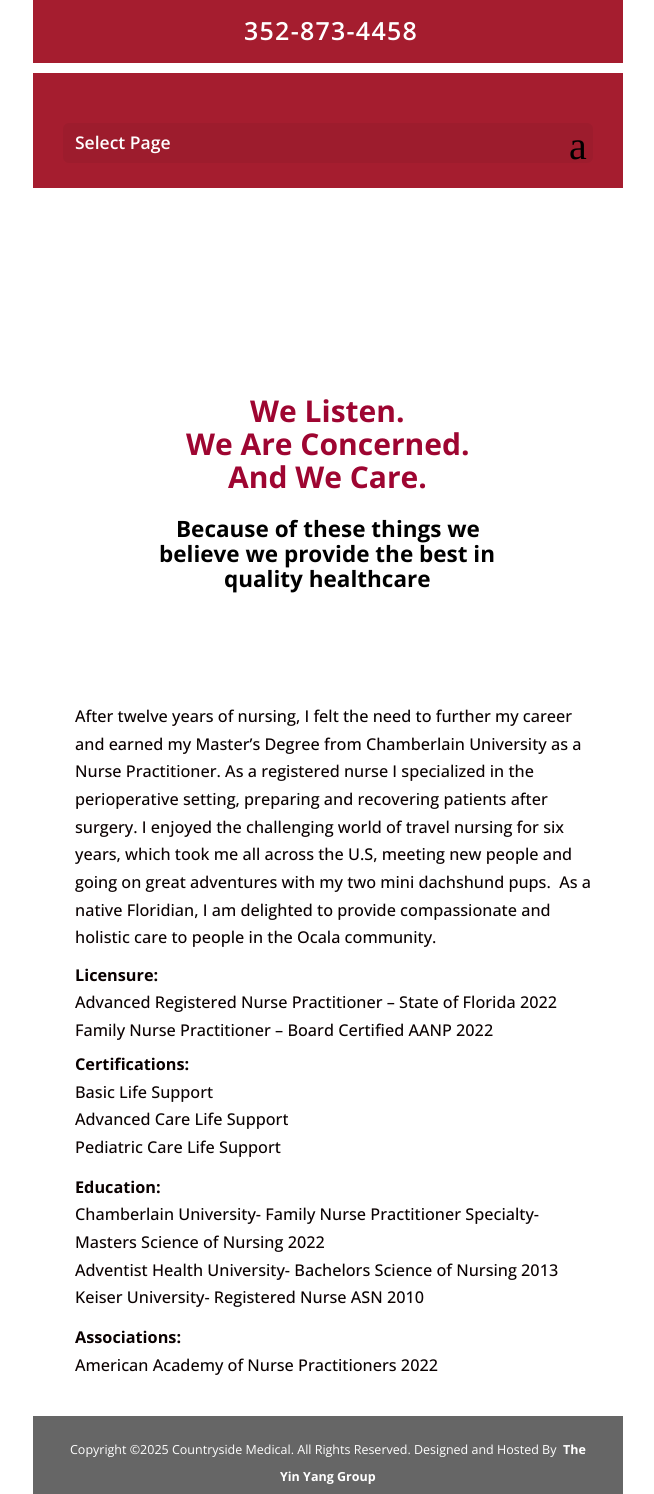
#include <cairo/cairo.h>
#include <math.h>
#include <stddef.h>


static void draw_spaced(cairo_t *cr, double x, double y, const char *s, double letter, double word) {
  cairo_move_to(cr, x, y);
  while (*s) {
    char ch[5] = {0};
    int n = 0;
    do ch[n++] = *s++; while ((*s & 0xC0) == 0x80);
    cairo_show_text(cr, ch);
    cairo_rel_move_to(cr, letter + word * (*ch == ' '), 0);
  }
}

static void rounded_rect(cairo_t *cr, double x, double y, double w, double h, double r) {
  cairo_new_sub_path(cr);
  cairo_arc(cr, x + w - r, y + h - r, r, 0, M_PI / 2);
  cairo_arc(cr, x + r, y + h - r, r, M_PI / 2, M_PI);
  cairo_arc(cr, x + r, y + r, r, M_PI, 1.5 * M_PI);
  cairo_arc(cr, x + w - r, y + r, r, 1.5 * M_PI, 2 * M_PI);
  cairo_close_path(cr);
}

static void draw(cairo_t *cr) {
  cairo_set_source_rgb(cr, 1, 1, 1);
  cairo_paint(cr);
  cairo_set_source_rgb(cr, 165 / 255.0, 29 / 255.0, 47 / 255.0);
  cairo_rectangle(cr, 33, 0, 590, 63);
  cairo_fill(cr);
  cairo_rectangle(cr, 33, 73, 590, 115);
  cairo_fill(cr);
  cairo_set_source_rgb(cr, 157 / 255.0, 28 / 255.0, 45 / 255.0);
  rounded_rect(cr, 63, 123, 530, 40, 6);
  cairo_fill(cr);
  cairo_set_source_rgb(cr, 102 / 255.0, 102 / 255.0, 102 / 255.0);
  cairo_rectangle(cr, 33, 1416, 590, 78);
  cairo_fill(cr);
  cairo_select_font_face(cr, "Open Sans SemiBold", CAIRO_FONT_SLANT_NORMAL, CAIRO_FONT_WEIGHT_NORMAL);
  cairo_set_font_size(cr, 25);
  cairo_set_source_rgb(cr, 1, 1, 1);
  draw_spaced(cr, 244, 40, "352-873-4458", 1.25, 0);
  cairo_set_font_size(cr, 17.5);
  cairo_move_to(cr, 75, 149);
  cairo_show_text(cr, "Select Page");
  cairo_select_font_face(cr, "Liberation Serif", CAIRO_FONT_SLANT_NORMAL, CAIRO_FONT_WEIGHT_NORMAL);
  cairo_set_font_size(cr, 40);
  cairo_set_source_rgb(cr, 0, 0, 0);
  cairo_move_to(cr, 569, 159);
  cairo_show_text(cr, "a");
  cairo_select_font_face(cr, "Open Sans", CAIRO_FONT_SLANT_NORMAL, CAIRO_FONT_WEIGHT_BOLD);
  cairo_set_font_size(cr, 30);
  cairo_set_source_rgb(cr, 158 / 255.0, 5 / 255.0, 49 / 255.0);
  cairo_move_to(cr, 250, 422);
  cairo_show_text(cr, "We Listen.");
  cairo_move_to(cr, 186, 455);
  cairo_show_text(cr, "We Are Concerned.");
  cairo_move_to(cr, 228, 488);
  cairo_show_text(cr, "And We Care.");
  cairo_set_font_size(cr, 22.5);
  cairo_set_source_rgb(cr, 0, 0, 0);
  cairo_move_to(cr, 176, 537);
  cairo_show_text(cr, "Because of these things we");
  cairo_move_to(cr, 159, 562);
  cairo_show_text(cr, "believe we provide the best in");
  cairo_move_to(cr, 224, 587);
  cairo_show_text(cr, "quality healthcare");
  cairo_select_font_face(cr, "Open Sans Medium", CAIRO_FONT_SLANT_NORMAL, CAIRO_FONT_WEIGHT_NORMAL);
  cairo_set_font_size(cr, 16.25);
  cairo_set_source_rgb(cr, 10 / 255.0, 1 / 255.0, 1 / 255.0);
  cairo_move_to(cr, 75, 722);
  cairo_show_text(cr, "After twelve years of nursing, I felt the need to further my career");
  cairo_move_to(cr, 75, 750);
  cairo_show_text(cr, "and earned my Master’s Degree from Chamberlain University as a");
  cairo_move_to(cr, 75, 777);
  cairo_show_text(cr, "Nurse Practitioner. As a registered nurse I specialized in the");
  cairo_move_to(cr, 75, 805);
  cairo_show_text(cr, "perioperative setting, preparing and recovering patients after");
  cairo_move_to(cr, 75, 833);
  cairo_show_text(cr, "surgery. I enjoyed the challenging world of travel nursing for six");
  cairo_move_to(cr, 75, 860);
  cairo_show_text(cr, "years, which took me all across the U.S, meeting new people and");
  cairo_move_to(cr, 75, 888);
  cairo_show_text(cr, "going on great adventures with my two mini dachshund pups.  As a");
  cairo_move_to(cr, 75, 916);
  cairo_show_text(cr, "native Floridian, I am delighted to provide compassionate and");
  cairo_move_to(cr, 75, 943);
  cairo_show_text(cr, "holistic care to people in the Ocala community.");
  cairo_select_font_face(cr, "Open Sans", CAIRO_FONT_SLANT_NORMAL, CAIRO_FONT_WEIGHT_BOLD);
  cairo_move_to(cr, 75, 981);
  cairo_show_text(cr, "Licensure:");
  cairo_select_font_face(cr, "Open Sans Medium", CAIRO_FONT_SLANT_NORMAL, CAIRO_FONT_WEIGHT_NORMAL);
  cairo_move_to(cr, 75, 1008);
  cairo_show_text(cr, "Advanced Registered Nurse Practitioner – State of Florida 2022");
  cairo_move_to(cr, 75, 1036);
  cairo_show_text(cr, "Family Nurse Practitioner – Board Certified AANP 2022");
  cairo_select_font_face(cr, "Open Sans", CAIRO_FONT_SLANT_NORMAL, CAIRO_FONT_WEIGHT_BOLD);
  cairo_move_to(cr, 75, 1070);
  cairo_show_text(cr, "Certifications:");
  cairo_select_font_face(cr, "Open Sans Medium", CAIRO_FONT_SLANT_NORMAL, CAIRO_FONT_WEIGHT_NORMAL);
  cairo_move_to(cr, 75, 1098);
  cairo_show_text(cr, "Basic Life Support");
  cairo_move_to(cr, 75, 1125);
  cairo_show_text(cr, "Advanced Care Life Support");
  cairo_move_to(cr, 75, 1153);
  cairo_show_text(cr, "Pediatric Care Life Support");
  cairo_select_font_face(cr, "Open Sans", CAIRO_FONT_SLANT_NORMAL, CAIRO_FONT_WEIGHT_BOLD);
  cairo_move_to(cr, 75, 1193);
  cairo_show_text(cr, "Education:");
  cairo_select_font_face(cr, "Open Sans Medium", CAIRO_FONT_SLANT_NORMAL, CAIRO_FONT_WEIGHT_NORMAL);
  cairo_move_to(cr, 75, 1220);
  cairo_show_text(cr, "Chamberlain University- Family Nurse Practitioner Specialty-");
  cairo_move_to(cr, 75, 1248);
  cairo_show_text(cr, "Masters Science of Nursing 2022");
  cairo_move_to(cr, 75, 1276);
  cairo_show_text(cr, "Adventist Health University- Bachelors Science of Nursing 2013");
  cairo_move_to(cr, 75, 1303);
  cairo_show_text(cr, "Keiser University- Registered Nurse ASN 2010");
  cairo_select_font_face(cr, "Open Sans", CAIRO_FONT_SLANT_NORMAL, CAIRO_FONT_WEIGHT_BOLD);
  cairo_move_to(cr, 75, 1343);
  cairo_show_text(cr, "Associations:");
  cairo_select_font_face(cr, "Open Sans Medium", CAIRO_FONT_SLANT_NORMAL, CAIRO_FONT_WEIGHT_NORMAL);
  cairo_move_to(cr, 75, 1371);
  cairo_show_text(cr, "American Academy of Nurse Practitioners 2022");
  cairo_select_font_face(cr, "Open Sans", CAIRO_FONT_SLANT_NORMAL, CAIRO_FONT_WEIGHT_NORMAL);
  cairo_set_font_size(cr, 12.5);
  cairo_set_source_rgb(cr, 1, 1, 1);
  cairo_move_to(cr, 70, 1454);
  cairo_show_text(cr, "Copyright ©2025 Countryside Medical. All Rights Reserved. Designed and Hosted By");
  cairo_select_font_face(cr, "Open Sans", CAIRO_FONT_SLANT_NORMAL, CAIRO_FONT_WEIGHT_BOLD);
  cairo_move_to(cr, 563, 1454);
  cairo_show_text(cr, "The");
  cairo_move_to(cr, 280, 1481);
  cairo_show_text(cr, "Yin Yang Group");
}

int main(void) {
  cairo_surface_t *surface = cairo_image_surface_create(CAIRO_FORMAT_RGB24, 654, 1494);
  cairo_t *cr = cairo_create(surface);
  cairo_font_options_t *options = cairo_font_options_create();
  cairo_font_options_set_hint_metrics(options, CAIRO_HINT_METRICS_OFF);
  cairo_font_options_set_hint_style(options, CAIRO_HINT_STYLE_NONE);
  cairo_set_font_options(cr, options);
  cairo_set_miter_limit(cr, 4);
  draw(cr);
  cairo_surface_write_to_png(surface, "out.png");
  cairo_font_options_destroy(options);
  cairo_destroy(cr);
  cairo_surface_destroy(surface);
  return 0;
}
